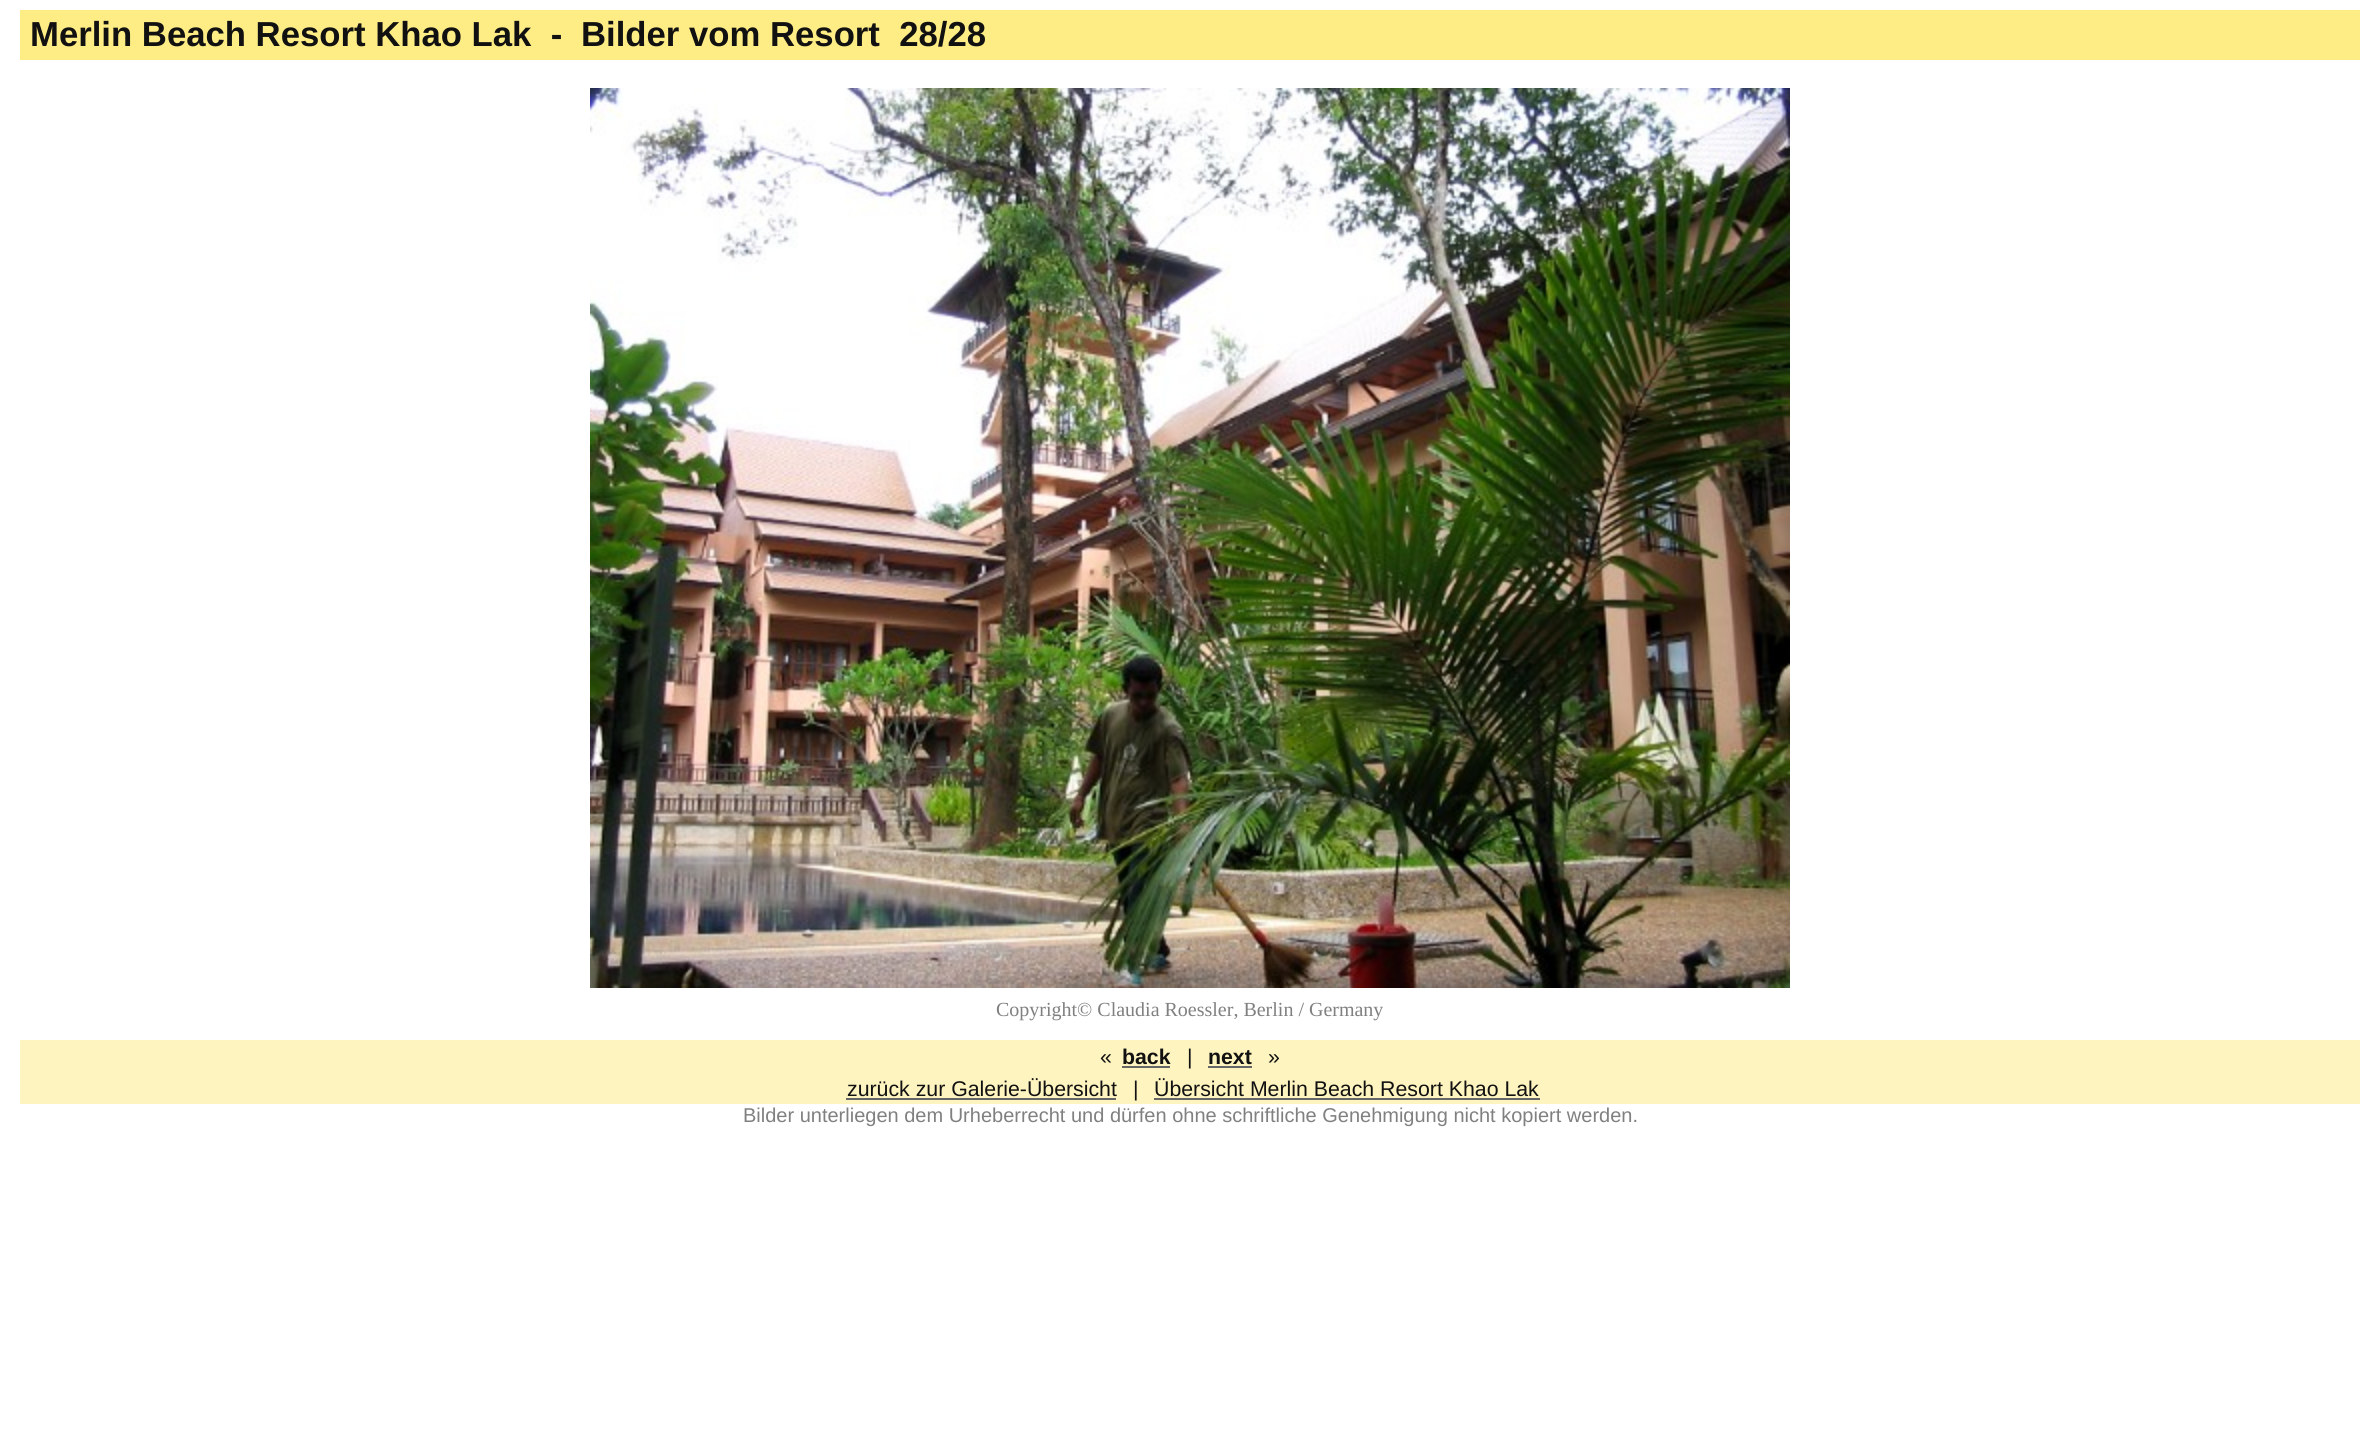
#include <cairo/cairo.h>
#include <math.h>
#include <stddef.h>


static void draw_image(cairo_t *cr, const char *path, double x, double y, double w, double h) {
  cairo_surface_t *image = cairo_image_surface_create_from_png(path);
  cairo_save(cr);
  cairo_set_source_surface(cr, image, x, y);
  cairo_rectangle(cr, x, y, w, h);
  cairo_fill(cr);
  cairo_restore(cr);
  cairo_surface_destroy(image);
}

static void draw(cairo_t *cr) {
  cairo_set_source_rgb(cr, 1, 1, 1);
  cairo_paint(cr);
  cairo_set_source_rgb(cr, 254 / 255.0, 236 / 255.0, 133 / 255.0);
  cairo_rectangle(cr, 20, 10, 2340, 50);
  cairo_fill(cr);
  draw_image(cr, "images/1.png", 590, 88, 1200, 900);
  cairo_set_source_rgb(cr, 254 / 255.0, 244 / 255.0, 192 / 255.0);
  cairo_rectangle(cr, 20, 1040, 2340, 64);
  cairo_fill(cr);
  cairo_set_source_rgb(cr, 102 / 255.0, 102 / 255.0, 102 / 255.0);
  cairo_rectangle(cr, 1122, 1066, 48, 2);
  cairo_fill(cr);
  cairo_rectangle(cr, 1208, 1066, 44, 2);
  cairo_fill(cr);
  cairo_rectangle(cr, 846, 1098, 270, 2);
  cairo_fill(cr);
  cairo_rectangle(cr, 1154, 1098, 386, 2);
  cairo_fill(cr);
  cairo_select_font_face(cr, "Liberation Sans", CAIRO_FONT_SLANT_NORMAL, CAIRO_FONT_WEIGHT_BOLD);
  cairo_set_font_size(cr, 34.7);
  cairo_set_source_rgb(cr, 17 / 255.0, 17 / 255.0, 17 / 255.0);
  cairo_move_to(cr, 30, 46);
  cairo_show_text(cr, "Merlin Beach Resort Khao Lak  -");
  cairo_move_to(cr, 581, 46);
  cairo_show_text(cr, "Bilder vom Resort  28/28");
  cairo_select_font_face(cr, "Liberation Serif", CAIRO_FONT_SLANT_NORMAL, CAIRO_FONT_WEIGHT_NORMAL);
  cairo_set_font_size(cr, 20);
  cairo_set_source_rgb(cr, 128 / 255.0, 128 / 255.0, 128 / 255.0);
  cairo_move_to(cr, 996, 1016);
  cairo_show_text(cr, "Copyright© Claudia Roessler, Berlin / Germany");
  cairo_select_font_face(cr, "Liberation Sans", CAIRO_FONT_SLANT_NORMAL, CAIRO_FONT_WEIGHT_NORMAL);
  cairo_set_font_size(cr, 21.3);
  cairo_set_source_rgb(cr, 17 / 255.0, 17 / 255.0, 17 / 255.0);
  cairo_move_to(cr, 1100, 1064);
  cairo_show_text(cr, "«");
  cairo_select_font_face(cr, "Liberation Sans", CAIRO_FONT_SLANT_NORMAL, CAIRO_FONT_WEIGHT_BOLD);
  cairo_move_to(cr, 1122, 1064);
  cairo_show_text(cr, "back");
  cairo_select_font_face(cr, "Liberation Sans", CAIRO_FONT_SLANT_NORMAL, CAIRO_FONT_WEIGHT_NORMAL);
  cairo_move_to(cr, 1187, 1064);
  cairo_show_text(cr, "|");
  cairo_select_font_face(cr, "Liberation Sans", CAIRO_FONT_SLANT_NORMAL, CAIRO_FONT_WEIGHT_BOLD);
  cairo_move_to(cr, 1208, 1064);
  cairo_show_text(cr, "next");
  cairo_select_font_face(cr, "Liberation Sans", CAIRO_FONT_SLANT_NORMAL, CAIRO_FONT_WEIGHT_NORMAL);
  cairo_move_to(cr, 1268, 1064);
  cairo_show_text(cr, "»");
  cairo_move_to(cr, 847, 1096);
  cairo_show_text(cr, "zurück zur Galerie-Übersicht");
  cairo_move_to(cr, 1133, 1096);
  cairo_show_text(cr, "|");
  cairo_move_to(cr, 1154, 1096);
  cairo_show_text(cr, "Übersicht Merlin Beach Resort Khao Lak");
  cairo_set_font_size(cr, 20);
  cairo_set_source_rgb(cr, 128 / 255.0, 128 / 255.0, 128 / 255.0);
  cairo_move_to(cr, 743, 1122);
  cairo_show_text(cr, "Bilder unterliegen dem Urheberrecht und dürfen ohne schriftliche Genehmigung nicht kopiert werden.");
}

int main(void) {
  cairo_surface_t *surface = cairo_image_surface_create(CAIRO_FORMAT_RGB24, 2380, 1447);
  cairo_t *cr = cairo_create(surface);
  cairo_font_options_t *options = cairo_font_options_create();
  cairo_font_options_set_hint_metrics(options, CAIRO_HINT_METRICS_OFF);
  cairo_font_options_set_hint_style(options, CAIRO_HINT_STYLE_NONE);
  cairo_set_font_options(cr, options);
  cairo_set_miter_limit(cr, 4);
  draw(cr);
  cairo_surface_write_to_png(surface, "out.png");
  cairo_font_options_destroy(options);
  cairo_destroy(cr);
  cairo_surface_destroy(surface);
  return 0;
}
